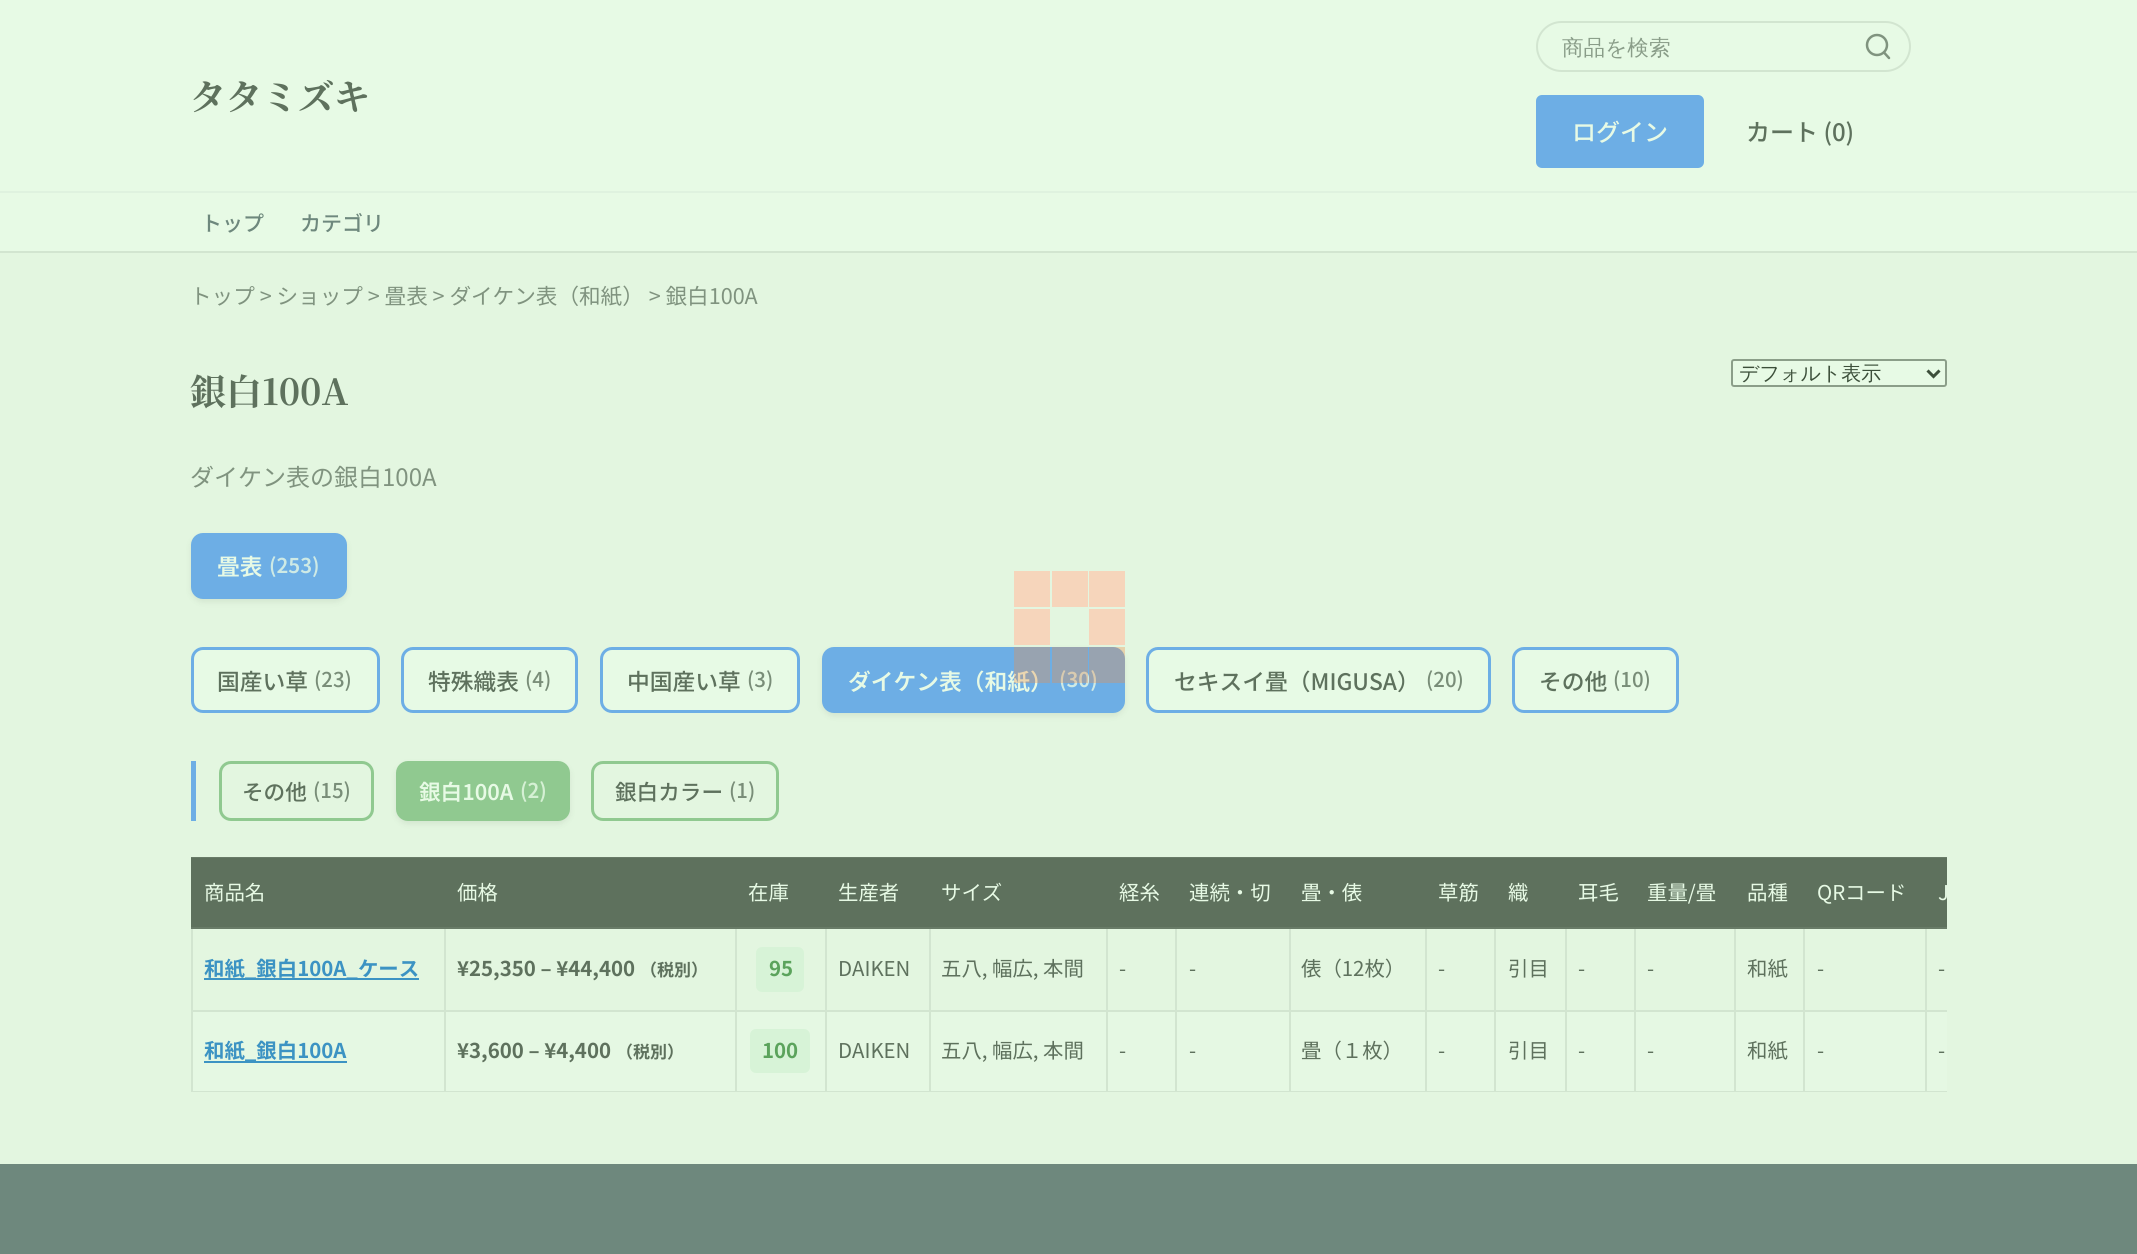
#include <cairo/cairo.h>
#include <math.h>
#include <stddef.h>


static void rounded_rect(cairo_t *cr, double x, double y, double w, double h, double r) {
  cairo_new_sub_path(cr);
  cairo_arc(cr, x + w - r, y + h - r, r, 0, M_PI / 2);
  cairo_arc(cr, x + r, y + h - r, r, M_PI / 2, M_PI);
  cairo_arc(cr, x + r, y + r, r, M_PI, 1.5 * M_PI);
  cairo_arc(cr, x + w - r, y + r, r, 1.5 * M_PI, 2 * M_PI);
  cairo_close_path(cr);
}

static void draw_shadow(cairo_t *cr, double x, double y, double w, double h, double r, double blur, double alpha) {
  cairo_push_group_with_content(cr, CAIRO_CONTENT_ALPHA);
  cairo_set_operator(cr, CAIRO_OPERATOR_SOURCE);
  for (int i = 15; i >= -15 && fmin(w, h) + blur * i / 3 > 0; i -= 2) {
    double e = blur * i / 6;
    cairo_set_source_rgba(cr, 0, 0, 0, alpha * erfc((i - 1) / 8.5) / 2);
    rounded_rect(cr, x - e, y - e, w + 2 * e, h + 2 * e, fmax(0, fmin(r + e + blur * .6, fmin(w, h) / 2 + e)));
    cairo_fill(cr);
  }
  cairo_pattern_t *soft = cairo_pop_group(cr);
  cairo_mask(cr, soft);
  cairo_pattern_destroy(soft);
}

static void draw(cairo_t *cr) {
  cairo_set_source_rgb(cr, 227 / 255.0, 246 / 255.0, 224 / 255.0);
  cairo_paint(cr);
  cairo_set_source_rgb(cr, 231 / 255.0, 250 / 255.0, 229 / 255.0);
  cairo_rectangle(cr, 0, 0, 2137, 251);
  cairo_fill(cr);
  cairo_set_source_rgb(cr, 210 / 255.0, 229 / 255.0, 208 / 255.0);
  cairo_rectangle(cr, 0, 251, 2137, 2);
  cairo_fill(cr);
  cairo_set_source_rgb(cr, 223 / 255.0, 242 / 255.0, 223 / 255.0);
  cairo_rectangle(cr, 0, 191, 2137, 2);
  cairo_fill(cr);
  rounded_rect(cr, 1537, 22, 373, 49, 24.5);
  cairo_set_source_rgb(cr, 210 / 255.0, 229 / 255.0, 208 / 255.0);
  cairo_stroke(cr);
  cairo_arc(cr, 1877, 45, 10, 0, 2 * M_PI);
  cairo_set_source_rgb(cr, 128 / 255.0, 147 / 255.0, 127 / 255.0);
  cairo_set_line_width(cr, 2.5);
  cairo_stroke(cr);
  cairo_new_path(cr);
  cairo_move_to(cr, 1889, 58);
  cairo_line_to(cr, 1884, 52.5);
  cairo_set_line_cap(cr, CAIRO_LINE_CAP_ROUND);
  cairo_set_line_join(cr, CAIRO_LINE_JOIN_ROUND);
  cairo_stroke(cr);
  cairo_set_source_rgb(cr, 109 / 255.0, 174 / 255.0, 229 / 255.0);
  rounded_rect(cr, 1536, 95, 168, 73, 6);
  cairo_fill(cr);
  cairo_set_source_rgb(cr, 231 / 255.0, 250 / 255.0, 229 / 255.0);
  rounded_rect(cr, 1732, 360, 214, 26, 2);
  cairo_fill_preserve(cr);
  cairo_set_source_rgb(cr, 139 / 255.0, 158 / 255.0, 137 / 255.0);
  cairo_set_line_width(cr, 2);
  cairo_set_line_cap(cr, CAIRO_LINE_CAP_BUTT);
  cairo_set_line_join(cr, CAIRO_LINE_JOIN_MITER);
  cairo_stroke(cr);
  cairo_new_path(cr);
  cairo_move_to(cr, 1927.5, 370.5);
  cairo_line_to(cr, 1933.5, 376.5);
  cairo_line_to(cr, 1939.5, 370.5);
  cairo_set_source_rgb(cr, 60 / 255.0, 79 / 255.0, 58 / 255.0);
  cairo_set_line_width(cr, 3);
  cairo_stroke(cr);
  cairo_set_source_rgb(cr, 60 / 255.0, 79 / 255.0, 58 / 255.0);
  draw_shadow(cr, 191, 536, 156, 66, 12, 3, 0.1);
  cairo_set_source_rgb(cr, 109 / 255.0, 174 / 255.0, 229 / 255.0);
  rounded_rect(cr, 192.5, 534.5, 153, 63, 10.5);
  cairo_fill_preserve(cr);
  cairo_stroke(cr);
  cairo_set_source_rgb(cr, 231 / 255.0, 250 / 255.0, 229 / 255.0);
  rounded_rect(cr, 192.5, 648.5, 186, 63, 10.5);
  cairo_fill_preserve(cr);
  cairo_set_source_rgb(cr, 109 / 255.0, 174 / 255.0, 229 / 255.0);
  cairo_stroke(cr);
  cairo_set_source_rgb(cr, 231 / 255.0, 250 / 255.0, 229 / 255.0);
  rounded_rect(cr, 402.5, 648.5, 174, 63, 10.5);
  cairo_fill_preserve(cr);
  cairo_set_source_rgb(cr, 109 / 255.0, 174 / 255.0, 229 / 255.0);
  cairo_stroke(cr);
  cairo_set_source_rgb(cr, 231 / 255.0, 250 / 255.0, 229 / 255.0);
  rounded_rect(cr, 601.5, 648.5, 197, 63, 10.5);
  cairo_fill_preserve(cr);
  cairo_set_source_rgb(cr, 109 / 255.0, 174 / 255.0, 229 / 255.0);
  cairo_stroke(cr);
  cairo_set_source_rgb(cr, 60 / 255.0, 79 / 255.0, 58 / 255.0);
  draw_shadow(cr, 822, 650, 303, 66, 12, 3, 0.1);
  cairo_set_source_rgb(cr, 109 / 255.0, 174 / 255.0, 229 / 255.0);
  rounded_rect(cr, 823.5, 648.5, 300, 63, 10.5);
  cairo_fill_preserve(cr);
  cairo_stroke(cr);
  cairo_set_source_rgb(cr, 231 / 255.0, 250 / 255.0, 229 / 255.0);
  rounded_rect(cr, 1147.5, 648.5, 342, 63, 10.5);
  cairo_fill_preserve(cr);
  cairo_set_source_rgb(cr, 109 / 255.0, 174 / 255.0, 229 / 255.0);
  cairo_stroke(cr);
  cairo_set_source_rgb(cr, 231 / 255.0, 250 / 255.0, 229 / 255.0);
  rounded_rect(cr, 1513.5, 648.5, 164, 63, 10.5);
  cairo_fill_preserve(cr);
  cairo_set_source_rgb(cr, 109 / 255.0, 174 / 255.0, 229 / 255.0);
  cairo_stroke(cr);
  cairo_rectangle(cr, 191, 761, 5, 60);
  cairo_fill(cr);
  rounded_rect(cr, 220.5, 762.5, 152, 57, 10.5);
  cairo_set_source_rgb(cr, 144 / 255.0, 201 / 255.0, 144 / 255.0);
  cairo_stroke(cr);
  cairo_set_source_rgb(cr, 60 / 255.0, 79 / 255.0, 58 / 255.0);
  draw_shadow(cr, 396, 764, 174, 60, 12, 3, 0.1);
  cairo_set_source_rgb(cr, 144 / 255.0, 201 / 255.0, 144 / 255.0);
  rounded_rect(cr, 397.5, 762.5, 171, 57, 10.5);
  cairo_fill_preserve(cr);
  cairo_stroke(cr);
  rounded_rect(cr, 592.5, 762.5, 185, 57, 10.5);
  cairo_stroke(cr);
  cairo_set_source_rgb(cr, 105 / 255.0, 124 / 255.0, 104 / 255.0);
  cairo_rectangle(cr, 191, 857, 1756, 1);
  cairo_fill(cr);
  cairo_set_source_rgb(cr, 210 / 255.0, 229 / 255.0, 208 / 255.0);
  cairo_rectangle(cr, 1925, 1010, 22, 2);
  cairo_fill(cr);
  cairo_set_source_rgb(cr, 229 / 255.0, 248 / 255.0, 227 / 255.0);
  cairo_rectangle(cr, 193, 1012, 1754, 79);
  cairo_fill(cr);
  cairo_set_source_rgb(cr, 210 / 255.0, 229 / 255.0, 208 / 255.0);
  cairo_rectangle(cr, 1925, 1091, 22, 1);
  cairo_fill(cr);
  cairo_rectangle(cr, 1925, 1010, 2, 82);
  cairo_fill(cr);
  cairo_rectangle(cr, 1803, 1010, 123, 2);
  cairo_fill(cr);
  cairo_rectangle(cr, 1803, 1091, 123, 1);
  cairo_fill(cr);
  cairo_rectangle(cr, 1803, 1010, 2, 82);
  cairo_fill(cr);
  cairo_rectangle(cr, 1734, 1010, 71, 2);
  cairo_fill(cr);
  cairo_rectangle(cr, 1734, 1091, 71, 1);
  cairo_fill(cr);
  cairo_rectangle(cr, 1734, 1010, 2, 82);
  cairo_fill(cr);
  cairo_rectangle(cr, 1634, 1010, 102, 2);
  cairo_fill(cr);
  cairo_rectangle(cr, 1634, 1091, 102, 1);
  cairo_fill(cr);
  cairo_rectangle(cr, 1634, 1010, 2, 82);
  cairo_fill(cr);
  cairo_rectangle(cr, 1565, 1010, 70, 2);
  cairo_fill(cr);
  cairo_rectangle(cr, 1565, 1091, 70, 1);
  cairo_fill(cr);
  cairo_rectangle(cr, 1565, 1010, 2, 82);
  cairo_fill(cr);
  cairo_rectangle(cr, 1494, 1010, 72, 2);
  cairo_fill(cr);
  cairo_rectangle(cr, 1494, 1091, 72, 1);
  cairo_fill(cr);
  cairo_rectangle(cr, 1494, 1010, 2, 82);
  cairo_fill(cr);
  cairo_rectangle(cr, 1425, 1010, 71, 2);
  cairo_fill(cr);
  cairo_rectangle(cr, 1425, 1091, 71, 1);
  cairo_fill(cr);
  cairo_rectangle(cr, 1425, 1010, 2, 82);
  cairo_fill(cr);
  cairo_rectangle(cr, 1289, 1010, 138, 2);
  cairo_fill(cr);
  cairo_rectangle(cr, 1289, 1091, 138, 1);
  cairo_fill(cr);
  cairo_rectangle(cr, 1289, 1010, 2, 82);
  cairo_fill(cr);
  cairo_rectangle(cr, 1175, 1010, 115, 2);
  cairo_fill(cr);
  cairo_rectangle(cr, 1175, 1091, 115, 1);
  cairo_fill(cr);
  cairo_rectangle(cr, 1175, 1010, 2, 82);
  cairo_fill(cr);
  cairo_rectangle(cr, 1106, 1010, 70, 2);
  cairo_fill(cr);
  cairo_rectangle(cr, 1106, 1091, 70, 1);
  cairo_fill(cr);
  cairo_rectangle(cr, 1106, 1010, 2, 82);
  cairo_fill(cr);
  cairo_rectangle(cr, 929, 1010, 178, 2);
  cairo_fill(cr);
  cairo_rectangle(cr, 929, 1091, 178, 1);
  cairo_fill(cr);
  cairo_rectangle(cr, 929, 1010, 2, 82);
  cairo_fill(cr);
  cairo_rectangle(cr, 825, 1010, 105, 2);
  cairo_fill(cr);
  cairo_rectangle(cr, 825, 1091, 105, 1);
  cairo_fill(cr);
  cairo_rectangle(cr, 825, 1010, 2, 82);
  cairo_fill(cr);
  cairo_rectangle(cr, 735, 1010, 92, 2);
  cairo_fill(cr);
  cairo_rectangle(cr, 735, 1091, 92, 1);
  cairo_fill(cr);
  cairo_rectangle(cr, 735, 1010, 2, 82);
  cairo_fill(cr);
  cairo_rectangle(cr, 444, 1010, 293, 2);
  cairo_fill(cr);
  cairo_rectangle(cr, 444, 1091, 293, 1);
  cairo_fill(cr);
  cairo_rectangle(cr, 444, 1010, 2, 82);
  cairo_fill(cr);
  cairo_rectangle(cr, 191, 1010, 255, 2);
  cairo_fill(cr);
  cairo_rectangle(cr, 444, 927, 2, 84);
  cairo_fill(cr);
  cairo_rectangle(cr, 735, 927, 2, 84);
  cairo_fill(cr);
  cairo_rectangle(cr, 825, 927, 2, 84);
  cairo_fill(cr);
  cairo_rectangle(cr, 929, 927, 2, 84);
  cairo_fill(cr);
  cairo_rectangle(cr, 1106, 927, 2, 84);
  cairo_fill(cr);
  cairo_rectangle(cr, 1175, 927, 2, 84);
  cairo_fill(cr);
  cairo_rectangle(cr, 1289, 927, 2, 84);
  cairo_fill(cr);
  cairo_rectangle(cr, 1425, 927, 2, 84);
  cairo_fill(cr);
  cairo_rectangle(cr, 1494, 927, 2, 84);
  cairo_fill(cr);
  cairo_rectangle(cr, 1565, 927, 2, 84);
  cairo_fill(cr);
  cairo_rectangle(cr, 1634, 927, 2, 84);
  cairo_fill(cr);
  cairo_rectangle(cr, 1734, 927, 2, 84);
  cairo_fill(cr);
  cairo_rectangle(cr, 1803, 927, 2, 84);
  cairo_fill(cr);
  cairo_rectangle(cr, 1925, 927, 2, 84);
  cairo_fill(cr);
  cairo_rectangle(cr, 191, 1091, 255, 1);
  cairo_fill(cr);
  cairo_rectangle(cr, 191, 927, 2, 165);
  cairo_fill(cr);
  cairo_set_source_rgb(cr, 105 / 255.0, 124 / 255.0, 104 / 255.0);
  cairo_rectangle(cr, 191, 927, 1756, 2);
  cairo_fill(cr);
  cairo_rectangle(cr, 191, 857, 2, 72);
  cairo_fill(cr);
  cairo_rectangle(cr, 930, 857, 1, 72);
  cairo_fill(cr);
  cairo_rectangle(cr, 1107, 857, 1, 72);
  cairo_fill(cr);
  cairo_rectangle(cr, 1176, 857, 1, 72);
  cairo_fill(cr);
  cairo_rectangle(cr, 1290, 857, 1, 72);
  cairo_fill(cr);
  cairo_rectangle(cr, 1566, 857, 1, 72);
  cairo_fill(cr);
  cairo_rectangle(cr, 1635, 857, 1, 72);
  cairo_fill(cr);
  cairo_rectangle(cr, 1926, 857, 1, 72);
  cairo_fill(cr);
  cairo_set_source_rgb(cr, 94 / 255.0, 113 / 255.0, 93 / 255.0);
  cairo_rectangle(cr, 191, 858, 1756, 69);
  cairo_fill(cr);
  cairo_set_source_rgb(cr, 60 / 255.0, 147 / 255.0, 195 / 255.0);
  cairo_rectangle(cr, 204, 978, 215, 2);
  cairo_fill(cr);
  cairo_set_source_rgb(cr, 215 / 255.0, 243 / 255.0, 215 / 255.0);
  rounded_rect(cr, 756, 947, 48, 45, 6);
  cairo_fill(cr);
  cairo_set_source_rgb(cr, 60 / 255.0, 147 / 255.0, 195 / 255.0);
  cairo_rectangle(cr, 204, 1061, 143, 2);
  cairo_fill(cr);
  cairo_set_source_rgb(cr, 215 / 255.0, 243 / 255.0, 215 / 255.0);
  rounded_rect(cr, 750, 1029, 60, 44, 6);
  cairo_fill(cr);
  cairo_set_source_rgb(cr, 110 / 255.0, 136 / 255.0, 125 / 255.0);
  cairo_rectangle(cr, 0, 1164, 2137, 90);
  cairo_fill(cr);
  cairo_set_source_rgb(cr, 246 / 255.0, 213 / 255.0, 187 / 255.0);
  cairo_rectangle(cr, 1014, 571, 36, 36);
  cairo_fill(cr);
  cairo_rectangle(cr, 1052, 571, 36, 36);
  cairo_fill(cr);
  cairo_rectangle(cr, 1089, 571, 36, 36);
  cairo_fill(cr);
  cairo_rectangle(cr, 1014, 609, 36, 36);
  cairo_fill(cr);
  cairo_rectangle(cr, 1089, 609, 36, 36);
  cairo_fill(cr);
  cairo_select_font_face(cr, "Noto Serif JP", CAIRO_FONT_SLANT_NORMAL, CAIRO_FONT_WEIGHT_BOLD);
  cairo_set_font_size(cr, 36);
  cairo_set_source_rgb(cr, 94 / 255.0, 113 / 255.0, 93 / 255.0);
  cairo_move_to(cr, 190, 110);
  cairo_show_text(cr, "タタミズキ");
  cairo_select_font_face(cr, "WenQuanYi Zen Hei Medium", CAIRO_FONT_SLANT_NORMAL, CAIRO_FONT_WEIGHT_NORMAL);
  cairo_set_font_size(cr, 21.6);
  cairo_set_source_rgb(cr, 138 / 255.0, 157 / 255.0, 137 / 255.0);
  cairo_move_to(cr, 1562, 55);
  cairo_show_text(cr, "商品を検索");
  cairo_select_font_face(cr, "Noto Sans JP Medium", CAIRO_FONT_SLANT_NORMAL, CAIRO_FONT_WEIGHT_NORMAL);
  cairo_set_font_size(cr, 24);
  cairo_set_source_rgb(cr, 231 / 255.0, 250 / 255.0, 229 / 255.0);
  cairo_move_to(cr, 1572, 141);
  cairo_show_text(cr, "ログイン");
  cairo_set_source_rgb(cr, 94 / 255.0, 113 / 255.0, 93 / 255.0);
  cairo_move_to(cr, 1746, 141);
  cairo_show_text(cr, "カート (0)");
  cairo_set_font_size(cr, 21);
  cairo_set_source_rgb(cr, 110 / 255.0, 136 / 255.0, 125 / 255.0);
  cairo_move_to(cr, 201, 231);
  cairo_show_text(cr, "トップ");
  cairo_move_to(cr, 300, 231);
  cairo_show_text(cr, "カテゴリ");
  cairo_select_font_face(cr, "Noto Sans JP", CAIRO_FONT_SLANT_NORMAL, CAIRO_FONT_WEIGHT_NORMAL);
  cairo_set_font_size(cr, 21.6);
  cairo_set_source_rgb(cr, 128 / 255.0, 147 / 255.0, 127 / 255.0);
  cairo_move_to(cr, 190, 304);
  cairo_show_text(cr, "トップ > ショップ > 畳表 > ダイケン表（和紙） > 銀白100A");
  cairo_select_font_face(cr, "Noto Serif JP", CAIRO_FONT_SLANT_NORMAL, CAIRO_FONT_WEIGHT_BOLD);
  cairo_set_font_size(cr, 36);
  cairo_set_source_rgb(cr, 94 / 255.0, 113 / 255.0, 93 / 255.0);
  cairo_move_to(cr, 190, 405);
  cairo_show_text(cr, "銀白100A");
  cairo_select_font_face(cr, "WenQuanYi Zen Hei Medium", CAIRO_FONT_SLANT_NORMAL, CAIRO_FONT_WEIGHT_NORMAL);
  cairo_set_font_size(cr, 20);
  cairo_set_source_rgb(cr, 60 / 255.0, 79 / 255.0, 58 / 255.0);
  cairo_move_to(cr, 1739, 380);
  cairo_show_text(cr, "デフォルト表示");
  cairo_select_font_face(cr, "Noto Sans JP", CAIRO_FONT_SLANT_NORMAL, CAIRO_FONT_WEIGHT_NORMAL);
  cairo_set_font_size(cr, 24);
  cairo_set_source_rgb(cr, 128 / 255.0, 147 / 255.0, 127 / 255.0);
  cairo_move_to(cr, 190, 486);
  cairo_show_text(cr, "ダイケン表の銀白100A");
  cairo_select_font_face(cr, "Noto Sans JP SemiBold", CAIRO_FONT_SLANT_NORMAL, CAIRO_FONT_WEIGHT_NORMAL);
  cairo_set_font_size(cr, 22.75);
  cairo_set_source_rgb(cr, 231 / 255.0, 250 / 255.0, 229 / 255.0);
  cairo_move_to(cr, 217, 575);
  cairo_show_text(cr, "畳表");
  cairo_set_font_size(cr, 20.4);
  cairo_set_source_rgb(cr, 206 / 255.0, 234 / 255.0, 229 / 255.0);
  cairo_move_to(cr, 269, 573);
  cairo_show_text(cr, "(253)");
  cairo_select_font_face(cr, "Noto Sans JP Medium", CAIRO_FONT_SLANT_NORMAL, CAIRO_FONT_WEIGHT_NORMAL);
  cairo_set_font_size(cr, 22.75);
  cairo_set_source_rgb(cr, 94 / 255.0, 113 / 255.0, 93 / 255.0);
  cairo_move_to(cr, 217, 690);
  cairo_show_text(cr, "国産い草");
  cairo_set_font_size(cr, 20.4);
  cairo_set_source_rgb(cr, 121 / 255.0, 141 / 255.0, 120 / 255.0);
  cairo_move_to(cr, 314, 687);
  cairo_show_text(cr, "(23)");
  cairo_set_font_size(cr, 22.75);
  cairo_set_source_rgb(cr, 94 / 255.0, 113 / 255.0, 93 / 255.0);
  cairo_move_to(cr, 428, 690);
  cairo_show_text(cr, "特殊織表");
  cairo_set_font_size(cr, 20.4);
  cairo_set_source_rgb(cr, 121 / 255.0, 141 / 255.0, 120 / 255.0);
  cairo_move_to(cr, 525, 687);
  cairo_show_text(cr, "(4)");
  cairo_set_font_size(cr, 22.75);
  cairo_set_source_rgb(cr, 94 / 255.0, 113 / 255.0, 93 / 255.0);
  cairo_move_to(cr, 627, 690);
  cairo_show_text(cr, "中国産い草");
  cairo_set_font_size(cr, 20.4);
  cairo_set_source_rgb(cr, 121 / 255.0, 141 / 255.0, 120 / 255.0);
  cairo_move_to(cr, 747, 687);
  cairo_show_text(cr, "(3)");
  cairo_select_font_face(cr, "Noto Sans JP SemiBold", CAIRO_FONT_SLANT_NORMAL, CAIRO_FONT_WEIGHT_NORMAL);
  cairo_set_font_size(cr, 22.75);
  cairo_set_source_rgb(cr, 231 / 255.0, 250 / 255.0, 229 / 255.0);
  cairo_move_to(cr, 848, 690);
  cairo_show_text(cr, "ダイケン表（和紙）");
  cairo_set_font_size(cr, 20.4);
  cairo_set_source_rgb(cr, 206 / 255.0, 234 / 255.0, 229 / 255.0);
  cairo_move_to(cr, 1059, 687);
  cairo_show_text(cr, "(30)");
  cairo_select_font_face(cr, "Noto Sans JP Medium", CAIRO_FONT_SLANT_NORMAL, CAIRO_FONT_WEIGHT_NORMAL);
  cairo_set_font_size(cr, 22.75);
  cairo_set_source_rgb(cr, 94 / 255.0, 113 / 255.0, 93 / 255.0);
  cairo_move_to(cr, 1174, 690);
  cairo_show_text(cr, "セキスイ畳（MIGUSA）");
  cairo_set_font_size(cr, 20.4);
  cairo_set_source_rgb(cr, 121 / 255.0, 141 / 255.0, 120 / 255.0);
  cairo_move_to(cr, 1426, 687);
  cairo_show_text(cr, "(20)");
  cairo_set_font_size(cr, 22.75);
  cairo_set_source_rgb(cr, 94 / 255.0, 113 / 255.0, 93 / 255.0);
  cairo_move_to(cr, 1539, 690);
  cairo_show_text(cr, "その他");
  cairo_set_font_size(cr, 20.4);
  cairo_set_source_rgb(cr, 121 / 255.0, 141 / 255.0, 120 / 255.0);
  cairo_move_to(cr, 1613, 687);
  cairo_show_text(cr, "(10)");
  cairo_set_font_size(cr, 21.6);
  cairo_set_source_rgb(cr, 94 / 255.0, 113 / 255.0, 93 / 255.0);
  cairo_move_to(cr, 242, 800);
  cairo_show_text(cr, "その他");
  cairo_set_font_size(cr, 20.4);
  cairo_set_source_rgb(cr, 121 / 255.0, 141 / 255.0, 120 / 255.0);
  cairo_move_to(cr, 313, 798);
  cairo_show_text(cr, "(15)");
  cairo_select_font_face(cr, "Noto Sans JP SemiBold", CAIRO_FONT_SLANT_NORMAL, CAIRO_FONT_WEIGHT_NORMAL);
  cairo_set_font_size(cr, 21.6);
  cairo_set_source_rgb(cr, 231 / 255.0, 250 / 255.0, 229 / 255.0);
  cairo_move_to(cr, 419, 800);
  cairo_show_text(cr, "銀白100A");
  cairo_set_font_size(cr, 20.4);
  cairo_set_source_rgb(cr, 213 / 255.0, 240 / 255.0, 212 / 255.0);
  cairo_move_to(cr, 520, 798);
  cairo_show_text(cr, "(2)");
  cairo_select_font_face(cr, "Noto Sans JP Medium", CAIRO_FONT_SLANT_NORMAL, CAIRO_FONT_WEIGHT_NORMAL);
  cairo_set_font_size(cr, 21.6);
  cairo_set_source_rgb(cr, 94 / 255.0, 113 / 255.0, 93 / 255.0);
  cairo_move_to(cr, 615, 800);
  cairo_show_text(cr, "銀白カラー");
  cairo_set_font_size(cr, 20.4);
  cairo_set_source_rgb(cr, 121 / 255.0, 141 / 255.0, 120 / 255.0);
  cairo_move_to(cr, 729, 798);
  cairo_show_text(cr, "(1)");
  cairo_select_font_face(cr, "Noto Sans JP", CAIRO_FONT_SLANT_NORMAL, CAIRO_FONT_WEIGHT_NORMAL);
  cairo_set_source_rgb(cr, 231 / 255.0, 250 / 255.0, 229 / 255.0);
  cairo_move_to(cr, 204, 900);
  cairo_show_text(cr, "商品名");
  cairo_move_to(cr, 457, 900);
  cairo_show_text(cr, "価格");
  cairo_move_to(cr, 748, 900);
  cairo_show_text(cr, "在庫");
  cairo_move_to(cr, 838, 900);
  cairo_show_text(cr, "生産者");
  cairo_move_to(cr, 941, 900);
  cairo_show_text(cr, "サイズ");
  cairo_move_to(cr, 1119, 900);
  cairo_show_text(cr, "経糸");
  cairo_move_to(cr, 1189, 900);
  cairo_show_text(cr, "連続・切");
  cairo_move_to(cr, 1301, 900);
  cairo_show_text(cr, "畳・俵");
  cairo_move_to(cr, 1438, 900);
  cairo_show_text(cr, "草筋");
  cairo_move_to(cr, 1508, 900);
  cairo_show_text(cr, "織");
  cairo_move_to(cr, 1578, 900);
  cairo_show_text(cr, "耳毛");
  cairo_move_to(cr, 1647, 900);
  cairo_show_text(cr, "重量/畳");
  cairo_move_to(cr, 1747, 900);
  cairo_show_text(cr, "品種");
  cairo_move_to(cr, 1817, 900);
  cairo_show_text(cr, "QRコード");
  cairo_move_to(cr, 1938, 900);
  cairo_show_text(cr, "J");
  cairo_select_font_face(cr, "Noto Sans JP", CAIRO_FONT_SLANT_NORMAL, CAIRO_FONT_WEIGHT_BOLD);
  cairo_set_source_rgb(cr, 60 / 255.0, 147 / 255.0, 195 / 255.0);
  cairo_move_to(cr, 204, 976);
  cairo_show_text(cr, "和紙_銀白100A_ケース");
  cairo_set_source_rgb(cr, 94 / 255.0, 113 / 255.0, 93 / 255.0);
  cairo_move_to(cr, 457, 976);
  cairo_show_text(cr, "¥25,350 – ¥44,400");
  cairo_set_font_size(cr, 17);
  cairo_move_to(cr, 640, 976);
  cairo_show_text(cr, "（税別）");
  cairo_set_font_size(cr, 20.4);
  cairo_set_source_rgb(cr, 91 / 255.0, 163 / 255.0, 92 / 255.0);
  cairo_move_to(cr, 769, 976);
  cairo_show_text(cr, "95");
  cairo_select_font_face(cr, "Noto Sans JP", CAIRO_FONT_SLANT_NORMAL, CAIRO_FONT_WEIGHT_NORMAL);
  cairo_set_source_rgb(cr, 94 / 255.0, 113 / 255.0, 93 / 255.0);
  cairo_move_to(cr, 838, 976);
  cairo_show_text(cr, "DAIKEN");
  cairo_move_to(cr, 941, 976);
  cairo_show_text(cr, "五八, 幅広, 本間");
  cairo_move_to(cr, 1119, 976);
  cairo_show_text(cr, "-");
  cairo_move_to(cr, 1189, 976);
  cairo_show_text(cr, "-");
  cairo_move_to(cr, 1301, 976);
  cairo_show_text(cr, "俵（12枚）");
  cairo_move_to(cr, 1438, 976);
  cairo_show_text(cr, "-");
  cairo_move_to(cr, 1508, 976);
  cairo_show_text(cr, "引目");
  cairo_move_to(cr, 1578, 976);
  cairo_show_text(cr, "-");
  cairo_move_to(cr, 1647, 976);
  cairo_show_text(cr, "-");
  cairo_move_to(cr, 1747, 976);
  cairo_show_text(cr, "和紙");
  cairo_move_to(cr, 1817, 976);
  cairo_show_text(cr, "-");
  cairo_move_to(cr, 1938, 976);
  cairo_show_text(cr, "-");
  cairo_select_font_face(cr, "Noto Sans JP", CAIRO_FONT_SLANT_NORMAL, CAIRO_FONT_WEIGHT_BOLD);
  cairo_set_source_rgb(cr, 60 / 255.0, 147 / 255.0, 195 / 255.0);
  cairo_move_to(cr, 204, 1058);
  cairo_show_text(cr, "和紙_銀白100A");
  cairo_set_source_rgb(cr, 94 / 255.0, 113 / 255.0, 93 / 255.0);
  cairo_move_to(cr, 457, 1058);
  cairo_show_text(cr, "¥3,600 – ¥4,400");
  cairo_set_font_size(cr, 17);
  cairo_move_to(cr, 616, 1058);
  cairo_show_text(cr, "（税別）");
  cairo_set_font_size(cr, 20.4);
  cairo_set_source_rgb(cr, 91 / 255.0, 163 / 255.0, 92 / 255.0);
  cairo_move_to(cr, 762, 1058);
  cairo_show_text(cr, "100");
  cairo_select_font_face(cr, "Noto Sans JP", CAIRO_FONT_SLANT_NORMAL, CAIRO_FONT_WEIGHT_NORMAL);
  cairo_set_source_rgb(cr, 94 / 255.0, 113 / 255.0, 93 / 255.0);
  cairo_move_to(cr, 838, 1058);
  cairo_show_text(cr, "DAIKEN");
  cairo_move_to(cr, 941, 1058);
  cairo_show_text(cr, "五八, 幅広, 本間");
  cairo_move_to(cr, 1119, 1058);
  cairo_show_text(cr, "-");
  cairo_move_to(cr, 1189, 1058);
  cairo_show_text(cr, "-");
  cairo_move_to(cr, 1301, 1058);
  cairo_show_text(cr, "畳（１枚）");
  cairo_move_to(cr, 1438, 1058);
  cairo_show_text(cr, "-");
  cairo_move_to(cr, 1508, 1058);
  cairo_show_text(cr, "引目");
  cairo_move_to(cr, 1578, 1058);
  cairo_show_text(cr, "-");
  cairo_move_to(cr, 1647, 1058);
  cairo_show_text(cr, "-");
  cairo_move_to(cr, 1747, 1058);
  cairo_show_text(cr, "和紙");
  cairo_move_to(cr, 1817, 1058);
  cairo_show_text(cr, "-");
  cairo_move_to(cr, 1938, 1058);
  cairo_show_text(cr, "-");
  cairo_set_source_rgba(cr, 240 / 255.0, 141 / 255.0, 67 / 255.0, 0.33);
  cairo_rectangle(cr, 1014, 647, 36, 36);
  cairo_fill(cr);
  cairo_rectangle(cr, 1052, 647, 36, 36);
  cairo_fill(cr);
  cairo_rectangle(cr, 1089, 647, 36, 36);
  cairo_fill(cr);
}

int main(void) {
  cairo_surface_t *surface = cairo_image_surface_create(CAIRO_FORMAT_RGB24, 2137, 1254);
  cairo_t *cr = cairo_create(surface);
  cairo_font_options_t *options = cairo_font_options_create();
  cairo_font_options_set_hint_metrics(options, CAIRO_HINT_METRICS_OFF);
  cairo_font_options_set_hint_style(options, CAIRO_HINT_STYLE_NONE);
  cairo_set_font_options(cr, options);
  cairo_set_miter_limit(cr, 4);
  draw(cr);
  cairo_surface_write_to_png(surface, "out.png");
  cairo_font_options_destroy(options);
  cairo_destroy(cr);
  cairo_surface_destroy(surface);
  return 0;
}
